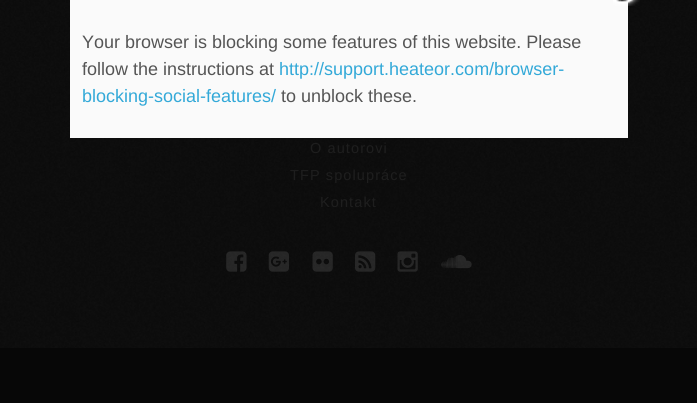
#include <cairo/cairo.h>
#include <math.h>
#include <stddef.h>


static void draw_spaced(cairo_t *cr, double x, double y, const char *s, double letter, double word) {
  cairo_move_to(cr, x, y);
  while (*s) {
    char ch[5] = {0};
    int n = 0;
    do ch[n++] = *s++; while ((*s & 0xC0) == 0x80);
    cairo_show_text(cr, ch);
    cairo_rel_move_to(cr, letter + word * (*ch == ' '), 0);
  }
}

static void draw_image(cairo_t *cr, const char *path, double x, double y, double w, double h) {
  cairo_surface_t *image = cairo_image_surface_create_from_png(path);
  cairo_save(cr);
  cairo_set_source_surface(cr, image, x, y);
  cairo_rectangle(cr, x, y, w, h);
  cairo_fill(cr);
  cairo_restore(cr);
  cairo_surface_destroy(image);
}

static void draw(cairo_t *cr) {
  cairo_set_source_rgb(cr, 1, 1, 1);
  cairo_paint(cr);
  draw_image(cr, "images/1.png", 0, 0, 697, 348);
  cairo_set_source_rgb(cr, 250 / 255.0, 250 / 255.0, 250 / 255.0);
  cairo_rectangle(cr, 70, 0, 558, 138);
  cairo_fill(cr);
  draw_image(cr, "images/2.png", 613, 0, 27, 6);
  draw_image(cr, "images/3.png", 226, 251, 21, 21);
  draw_image(cr, "images/4.png", 268, 251, 21, 21);
  draw_image(cr, "images/5.png", 312, 251, 21, 21);
  draw_image(cr, "images/6.png", 355, 251, 21, 21);
  draw_image(cr, "images/7.png", 397, 251, 21, 21);
  draw_image(cr, "images/8.png", 441, 255, 31, 14);
  cairo_set_source_rgb(cr, 7 / 255.0, 7 / 255.0, 7 / 255.0);
  cairo_rectangle(cr, 0, 348, 697, 55);
  cairo_fill(cr);
  cairo_select_font_face(cr, "Liberation Sans", CAIRO_FONT_SLANT_NORMAL, CAIRO_FONT_WEIGHT_NORMAL);
  cairo_set_font_size(cr, 18);
  cairo_set_source_rgb(cr, 85 / 255.0, 85 / 255.0, 85 / 255.0);
  cairo_move_to(cr, 82, 48);
  cairo_show_text(cr, "Your browser is blocking some features of this website. Please");
  cairo_move_to(cr, 82, 75);
  cairo_show_text(cr, "follow the instructions at");
  cairo_set_source_rgb(cr, 51 / 255.0, 169 / 255.0, 216 / 255.0);
  cairo_move_to(cr, 279, 75);
  cairo_show_text(cr, "http://support.heateor.com/browser-");
  cairo_move_to(cr, 82, 102);
  cairo_show_text(cr, "blocking-social-features/");
  cairo_set_source_rgb(cr, 85 / 255.0, 85 / 255.0, 85 / 255.0);
  cairo_move_to(cr, 281, 102);
  cairo_show_text(cr, "to unblock these.");
  cairo_set_font_size(cr, 14.5);
  cairo_set_source_rgb(cr, 30 / 255.0, 30 / 255.0, 30 / 255.0);
  draw_spaced(cr, 310, 153, "O autorovi", 1.1, 0);
  draw_spaced(cr, 290, 180, "TFP spolupráce", 1.1, 0);
  draw_spaced(cr, 320, 207, "Kontakt", 1.1, 0);
}

int main(void) {
  cairo_surface_t *surface = cairo_image_surface_create(CAIRO_FORMAT_RGB24, 697, 403);
  cairo_t *cr = cairo_create(surface);
  cairo_font_options_t *options = cairo_font_options_create();
  cairo_font_options_set_hint_metrics(options, CAIRO_HINT_METRICS_OFF);
  cairo_font_options_set_hint_style(options, CAIRO_HINT_STYLE_NONE);
  cairo_set_font_options(cr, options);
  cairo_set_miter_limit(cr, 4);
  draw(cr);
  cairo_surface_write_to_png(surface, "out.png");
  cairo_font_options_destroy(options);
  cairo_destroy(cr);
  cairo_surface_destroy(surface);
  return 0;
}
